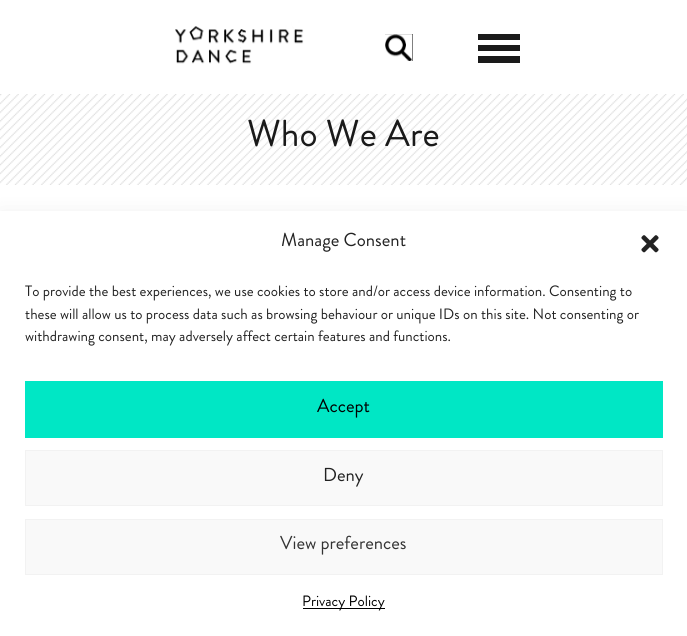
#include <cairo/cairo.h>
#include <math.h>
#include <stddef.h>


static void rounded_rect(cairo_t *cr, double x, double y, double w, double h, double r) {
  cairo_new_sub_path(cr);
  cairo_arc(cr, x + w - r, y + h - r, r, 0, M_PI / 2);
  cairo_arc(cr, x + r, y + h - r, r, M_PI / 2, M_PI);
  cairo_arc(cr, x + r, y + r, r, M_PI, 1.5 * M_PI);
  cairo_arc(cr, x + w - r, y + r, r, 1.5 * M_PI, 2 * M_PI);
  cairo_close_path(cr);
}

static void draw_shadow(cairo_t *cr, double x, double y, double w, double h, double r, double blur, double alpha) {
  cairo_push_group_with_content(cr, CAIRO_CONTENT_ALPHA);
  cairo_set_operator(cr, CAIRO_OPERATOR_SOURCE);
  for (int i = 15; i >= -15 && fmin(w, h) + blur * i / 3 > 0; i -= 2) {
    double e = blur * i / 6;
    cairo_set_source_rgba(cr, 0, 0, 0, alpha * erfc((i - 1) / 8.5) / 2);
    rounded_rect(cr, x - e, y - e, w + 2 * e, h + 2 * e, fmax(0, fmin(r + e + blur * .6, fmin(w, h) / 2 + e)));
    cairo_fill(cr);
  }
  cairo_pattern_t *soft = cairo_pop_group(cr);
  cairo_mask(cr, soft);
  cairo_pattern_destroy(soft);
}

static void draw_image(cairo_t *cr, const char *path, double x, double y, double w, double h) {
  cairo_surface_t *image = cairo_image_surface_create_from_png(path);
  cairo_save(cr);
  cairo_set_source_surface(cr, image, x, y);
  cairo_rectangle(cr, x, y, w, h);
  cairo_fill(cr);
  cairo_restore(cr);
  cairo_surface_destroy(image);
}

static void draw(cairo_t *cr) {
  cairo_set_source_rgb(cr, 1, 1, 1);
  cairo_paint(cr);
  draw_image(cr, "images/1.png", 188, 0, 32, 2);
  cairo_set_source_rgb(cr, 0, 0, 0);
  cairo_rectangle(cr, 385, 34, 28, 27);
  cairo_fill(cr);
  draw_image(cr, "images/2.png", 385, 34, 28, 27);
  draw_image(cr, "images/3.png", 175, 1, 129, 63);
  cairo_set_source_rgb(cr, 26 / 255.0, 26 / 255.0, 26 / 255.0);
  cairo_rectangle(cr, 478, 34, 42, 6);
  cairo_fill(cr);
  cairo_rectangle(cr, 478, 56, 42, 7);
  cairo_fill(cr);
  cairo_rectangle(cr, 478, 45, 42, 6);
  cairo_fill(cr);
  draw_image(cr, "images/4.png", 0, 94, 687, 91);
  cairo_set_source_rgb(cr, 0, 0, 0);
  draw_shadow(cr, 0, 224, 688, 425, 0, 12.5, 0.19);
  cairo_set_source_rgb(cr, 1, 1, 1);
  cairo_rectangle(cr, 0, 211, 687, 425);
  cairo_fill(cr);
  draw_image(cr, "images/5.png", 641, 235, 18, 18);
  cairo_set_source_rgb(cr, 0, 231 / 255.0, 197 / 255.0);
  cairo_rectangle(cr, 25, 381, 638, 57);
  cairo_fill(cr);
  cairo_set_source_rgb(cr, 249 / 255.0, 249 / 255.0, 249 / 255.0);
  cairo_rectangle(cr, 25.5, 450.5, 637, 55);
  cairo_fill_preserve(cr);
  cairo_set_source_rgb(cr, 242 / 255.0, 242 / 255.0, 242 / 255.0);
  cairo_set_line_width(cr, 1);
  cairo_stroke(cr);
  cairo_set_source_rgb(cr, 249 / 255.0, 249 / 255.0, 249 / 255.0);
  cairo_rectangle(cr, 25.5, 519.5, 637, 55);
  cairo_fill_preserve(cr);
  cairo_set_source_rgb(cr, 242 / 255.0, 242 / 255.0, 242 / 255.0);
  cairo_stroke(cr);
  cairo_set_source_rgb(cr, 0, 0, 0);
  cairo_rectangle(cr, 303, 608, 82, 1);
  cairo_fill(cr);
  cairo_select_font_face(cr, "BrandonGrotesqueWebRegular", CAIRO_FONT_SLANT_NORMAL, CAIRO_FONT_WEIGHT_NORMAL);
  cairo_set_font_size(cr, 37.5);
  cairo_set_source_rgb(cr, 26 / 255.0, 26 / 255.0, 26 / 255.0);
  cairo_move_to(cr, 247, 146);
  cairo_show_text(cr, "Who We Are");
  cairo_set_font_size(cr, 18.75);
  cairo_set_source_rgb(cr, 34 / 255.0, 34 / 255.0, 34 / 255.0);
  cairo_move_to(cr, 281, 246);
  cairo_show_text(cr, "Manage Consent");
  cairo_set_font_size(cr, 15);
  cairo_move_to(cr, 25, 296);
  cairo_show_text(cr, "To provide the best experiences, we use cookies to store and/or access device information. Consenting to");
  cairo_move_to(cr, 25, 319);
  cairo_show_text(cr, "these will allow us to process data such as browsing behaviour or unique IDs on this site. Not consenting or");
  cairo_move_to(cr, 25, 341);
  cairo_show_text(cr, "withdrawing consent, may adversely affect certain features and functions.");
  cairo_set_font_size(cr, 18.75);
  cairo_set_source_rgb(cr, 0, 0, 0);
  cairo_move_to(cr, 317, 412);
  cairo_show_text(cr, "Accept");
  cairo_set_source_rgb(cr, 34 / 255.0, 34 / 255.0, 34 / 255.0);
  cairo_move_to(cr, 323, 481);
  cairo_show_text(cr, "Deny");
  cairo_set_source_rgb(cr, 51 / 255.0, 51 / 255.0, 51 / 255.0);
  cairo_move_to(cr, 280, 549);
  cairo_show_text(cr, "View preferences");
  cairo_set_font_size(cr, 15);
  cairo_set_source_rgb(cr, 0, 0, 0);
  cairo_move_to(cr, 302, 606);
  cairo_show_text(cr, "Privacy Policy");
}

int main(void) {
  cairo_surface_t *surface = cairo_image_surface_create(CAIRO_FORMAT_RGB24, 687, 636);
  cairo_t *cr = cairo_create(surface);
  cairo_font_options_t *options = cairo_font_options_create();
  cairo_font_options_set_hint_metrics(options, CAIRO_HINT_METRICS_OFF);
  cairo_font_options_set_hint_style(options, CAIRO_HINT_STYLE_NONE);
  cairo_set_font_options(cr, options);
  cairo_set_miter_limit(cr, 4);
  draw(cr);
  cairo_surface_write_to_png(surface, "out.png");
  cairo_font_options_destroy(options);
  cairo_destroy(cr);
  cairo_surface_destroy(surface);
  return 0;
}
